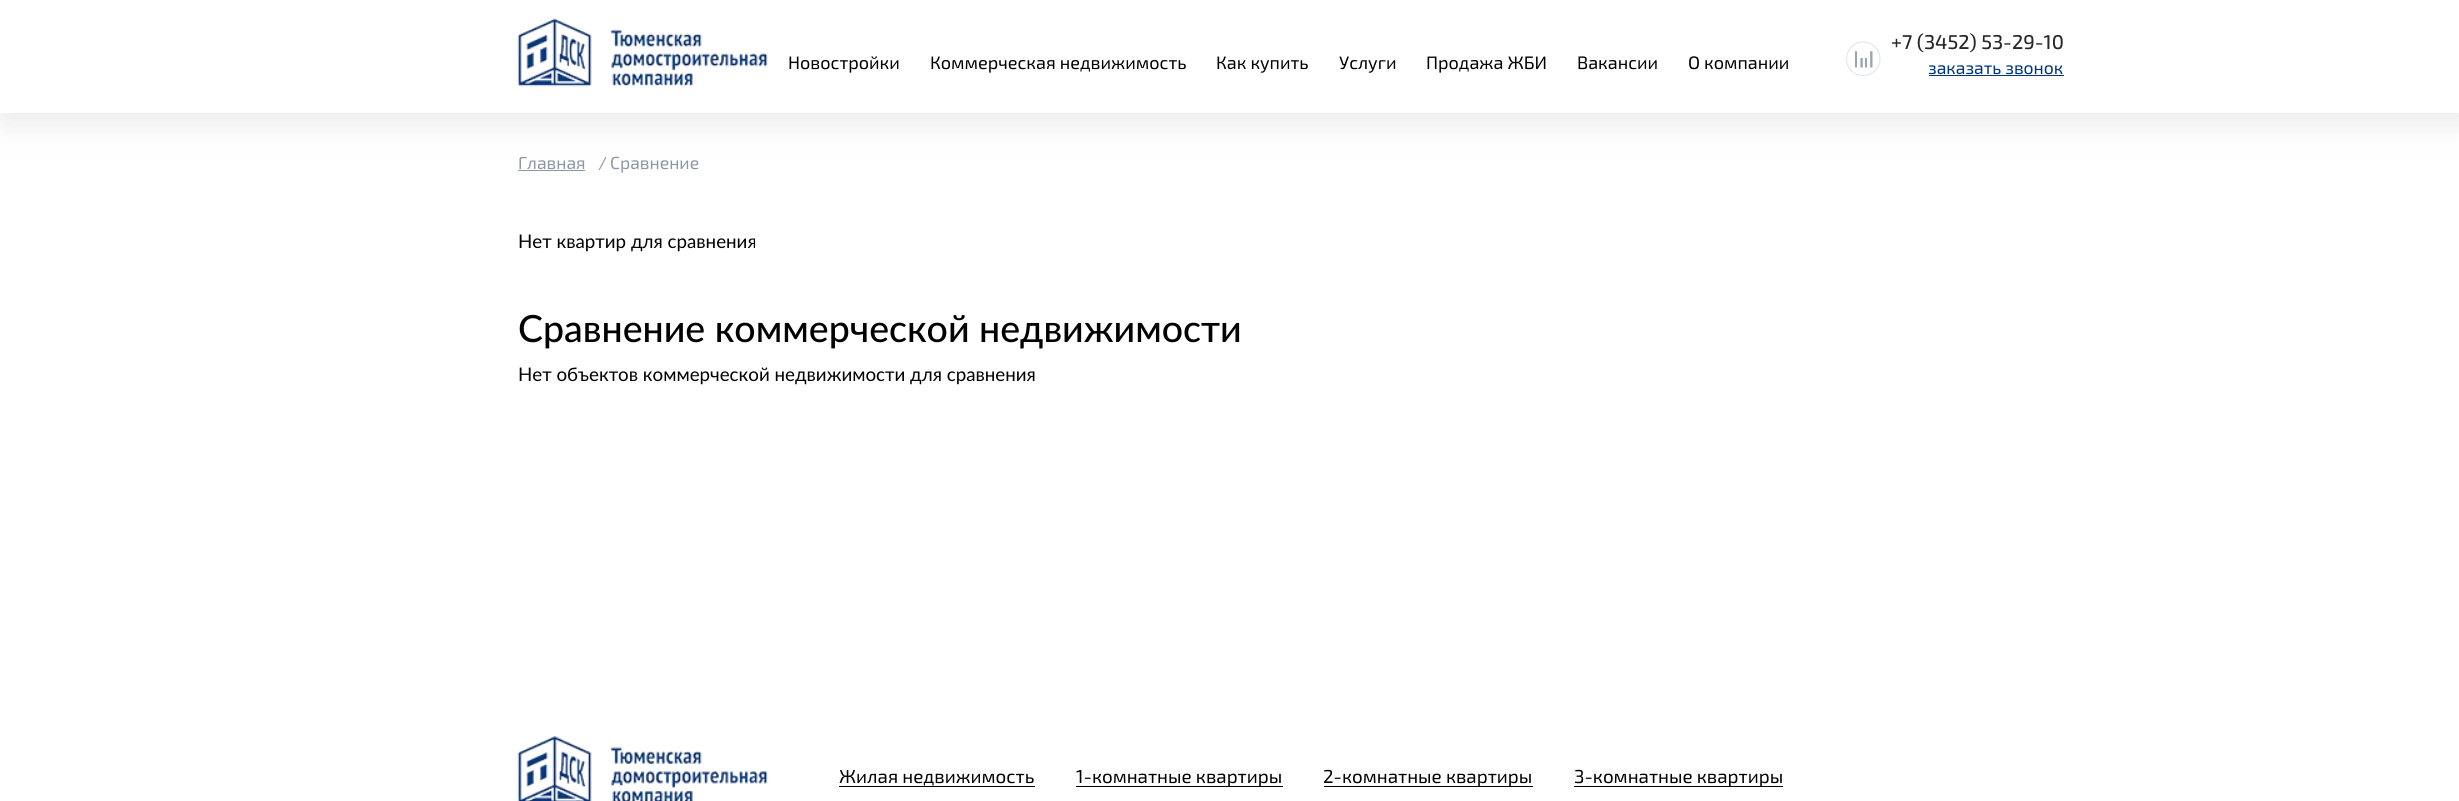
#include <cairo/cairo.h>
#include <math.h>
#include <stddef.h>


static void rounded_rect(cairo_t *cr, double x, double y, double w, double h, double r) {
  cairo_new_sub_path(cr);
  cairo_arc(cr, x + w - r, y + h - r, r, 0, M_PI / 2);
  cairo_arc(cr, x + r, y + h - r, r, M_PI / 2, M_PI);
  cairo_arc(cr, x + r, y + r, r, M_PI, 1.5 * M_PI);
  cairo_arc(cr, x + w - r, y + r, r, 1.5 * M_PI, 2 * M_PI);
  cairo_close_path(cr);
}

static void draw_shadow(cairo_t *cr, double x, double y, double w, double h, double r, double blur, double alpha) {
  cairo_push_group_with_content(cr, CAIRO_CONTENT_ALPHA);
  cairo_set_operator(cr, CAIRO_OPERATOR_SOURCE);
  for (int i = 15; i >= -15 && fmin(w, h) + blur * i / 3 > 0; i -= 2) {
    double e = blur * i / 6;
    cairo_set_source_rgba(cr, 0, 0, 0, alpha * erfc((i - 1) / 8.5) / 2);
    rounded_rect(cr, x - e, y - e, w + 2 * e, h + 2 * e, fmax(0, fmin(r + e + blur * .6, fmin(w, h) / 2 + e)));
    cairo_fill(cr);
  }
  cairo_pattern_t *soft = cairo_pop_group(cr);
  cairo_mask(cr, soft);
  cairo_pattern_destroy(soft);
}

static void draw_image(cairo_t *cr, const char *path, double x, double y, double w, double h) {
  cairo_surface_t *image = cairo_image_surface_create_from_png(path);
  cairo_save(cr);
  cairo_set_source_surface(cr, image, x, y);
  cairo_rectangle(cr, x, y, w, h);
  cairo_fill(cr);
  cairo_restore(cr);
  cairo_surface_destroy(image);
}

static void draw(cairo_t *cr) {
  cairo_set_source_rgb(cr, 1, 1, 1);
  cairo_paint(cr);
  cairo_save(cr);
  cairo_set_fill_rule(cr, CAIRO_FILL_RULE_EVEN_ODD);
  cairo_new_path(cr);
  cairo_move_to(cr, 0, 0);
  cairo_line_to(cr, 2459, 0);
  cairo_line_to(cr, 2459, 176);
  cairo_line_to(cr, 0, 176);
  cairo_close_path(cr);
  cairo_move_to(cr, 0, 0);
  cairo_line_to(cr, 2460, 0);
  cairo_line_to(cr, 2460, 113);
  cairo_line_to(cr, 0, 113);
  cairo_close_path(cr);
  cairo_clip(cr);
  cairo_set_source_rgb(cr, 188 / 255.0, 188 / 255.0, 188 / 255.0);
  draw_shadow(cr, 3, 5, 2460, 113, 0, 19, 0.4);
  cairo_restore(cr);
  draw_image(cr, "images/1.png", 517, 18, 251, 69);
  draw_image(cr, "images/2.png", 1855, 51, 18, 17);
  cairo_new_path(cr);
  cairo_move_to(cr, 1880, 59);
  cairo_curve_to(cr, 1880, 68, 1872.5, 75.5, 1863, 75.5);
  cairo_curve_to(cr, 1854, 75.5, 1846.5, 68, 1846.5, 59);
  cairo_curve_to(cr, 1846.5, 49.5, 1854, 42, 1863, 42);
  cairo_curve_to(cr, 1872.5, 42, 1880, 49.5, 1880, 59);
  cairo_close_path(cr);
  cairo_set_source_rgb(cr, 227 / 255.0, 230 / 255.0, 236 / 255.0);
  cairo_set_line_width(cr, 1.2);
  cairo_stroke(cr);
  cairo_set_source_rgb(cr, 0, 53 / 255.0, 128 / 255.0);
  cairo_rectangle(cr, 1929, 75, 135, 1);
  cairo_fill(cr);
  cairo_set_source_rgb(cr, 140 / 255.0, 151 / 255.0, 165 / 255.0);
  cairo_rectangle(cr, 518, 170, 67, 1);
  cairo_fill(cr);
  draw_image(cr, "images/3.png", 517, 736, 251, 65);
  cairo_set_source_rgb(cr, 0, 0, 0);
  cairo_rectangle(cr, 839, 786, 196, 1);
  cairo_fill(cr);
  cairo_rectangle(cr, 1076, 786, 207, 1);
  cairo_fill(cr);
  cairo_rectangle(cr, 1324, 786, 209, 1);
  cairo_fill(cr);
  cairo_rectangle(cr, 1574, 786, 209, 1);
  cairo_fill(cr);
  cairo_select_font_face(cr, "Exo 2", CAIRO_FONT_SLANT_NORMAL, CAIRO_FONT_WEIGHT_NORMAL);
  cairo_set_font_size(cr, 18);
  cairo_move_to(cr, 788, 69);
  cairo_show_text(cr, "Новостройки");
  cairo_move_to(cr, 930, 69);
  cairo_show_text(cr, "Коммерческая недвижимость");
  cairo_move_to(cr, 1216, 69);
  cairo_show_text(cr, "Как купить");
  cairo_move_to(cr, 1339, 69);
  cairo_show_text(cr, "Услуги");
  cairo_move_to(cr, 1426, 69);
  cairo_show_text(cr, "Продажа ЖБИ");
  cairo_move_to(cr, 1577, 69);
  cairo_show_text(cr, "Вакансии");
  cairo_move_to(cr, 1688, 69);
  cairo_show_text(cr, "О компании");
  cairo_select_font_face(cr, "Exo 2 Medium", CAIRO_FONT_SLANT_NORMAL, CAIRO_FONT_WEIGHT_NORMAL);
  cairo_set_font_size(cr, 20);
  cairo_set_source_rgb(cr, 40 / 255.0, 40 / 255.0, 40 / 255.0);
  cairo_move_to(cr, 1891, 49);
  cairo_show_text(cr, "+7 (3452) 53-29-10");
  cairo_select_font_face(cr, "Exo 2", CAIRO_FONT_SLANT_NORMAL, CAIRO_FONT_WEIGHT_NORMAL);
  cairo_set_font_size(cr, 17.5);
  cairo_set_source_rgb(cr, 0, 53 / 255.0, 128 / 255.0);
  cairo_move_to(cr, 1928, 74);
  cairo_show_text(cr, "заказать звонок");
  cairo_set_source_rgb(cr, 140 / 255.0, 151 / 255.0, 165 / 255.0);
  cairo_move_to(cr, 518, 169);
  cairo_show_text(cr, "Главная");
  cairo_move_to(cr, 598, 169);
  cairo_show_text(cr, "/");
  cairo_move_to(cr, 610, 169);
  cairo_show_text(cr, "Сравнение");
  cairo_select_font_face(cr, "Lato", CAIRO_FONT_SLANT_NORMAL, CAIRO_FONT_WEIGHT_NORMAL);
  cairo_set_font_size(cr, 18.75);
  cairo_set_source_rgb(cr, 0, 0, 0);
  cairo_move_to(cr, 518, 248);
  cairo_show_text(cr, "Нет квартир для сравнения");
  cairo_select_font_face(cr, "Lato Medium", CAIRO_FONT_SLANT_NORMAL, CAIRO_FONT_WEIGHT_NORMAL);
  cairo_set_font_size(cr, 37.5);
  cairo_move_to(cr, 518, 342);
  cairo_show_text(cr, "Сравнение коммерческой недвижимости");
  cairo_select_font_face(cr, "Lato", CAIRO_FONT_SLANT_NORMAL, CAIRO_FONT_WEIGHT_NORMAL);
  cairo_set_font_size(cr, 18.75);
  cairo_move_to(cr, 518, 381);
  cairo_show_text(cr, "Нет объектов коммерческой недвижимости для сравнения");
  cairo_select_font_face(cr, "Exo 2", CAIRO_FONT_SLANT_NORMAL, CAIRO_FONT_WEIGHT_NORMAL);
  cairo_move_to(cr, 839, 783);
  cairo_show_text(cr, "Жилая недвижимость");
  cairo_move_to(cr, 1076, 783);
  cairo_show_text(cr, "1-комнатные квартиры");
  cairo_move_to(cr, 1323, 783);
  cairo_show_text(cr, "2-комнатные квартиры");
  cairo_move_to(cr, 1574, 783);
  cairo_show_text(cr, "3-комнатные квартиры");
}

int main(void) {
  cairo_surface_t *surface = cairo_image_surface_create(CAIRO_FORMAT_RGB24, 2459, 801);
  cairo_t *cr = cairo_create(surface);
  cairo_font_options_t *options = cairo_font_options_create();
  cairo_font_options_set_hint_metrics(options, CAIRO_HINT_METRICS_OFF);
  cairo_font_options_set_hint_style(options, CAIRO_HINT_STYLE_NONE);
  cairo_set_font_options(cr, options);
  cairo_set_miter_limit(cr, 4);
  draw(cr);
  cairo_surface_write_to_png(surface, "out.png");
  cairo_font_options_destroy(options);
  cairo_destroy(cr);
  cairo_surface_destroy(surface);
  return 0;
}
